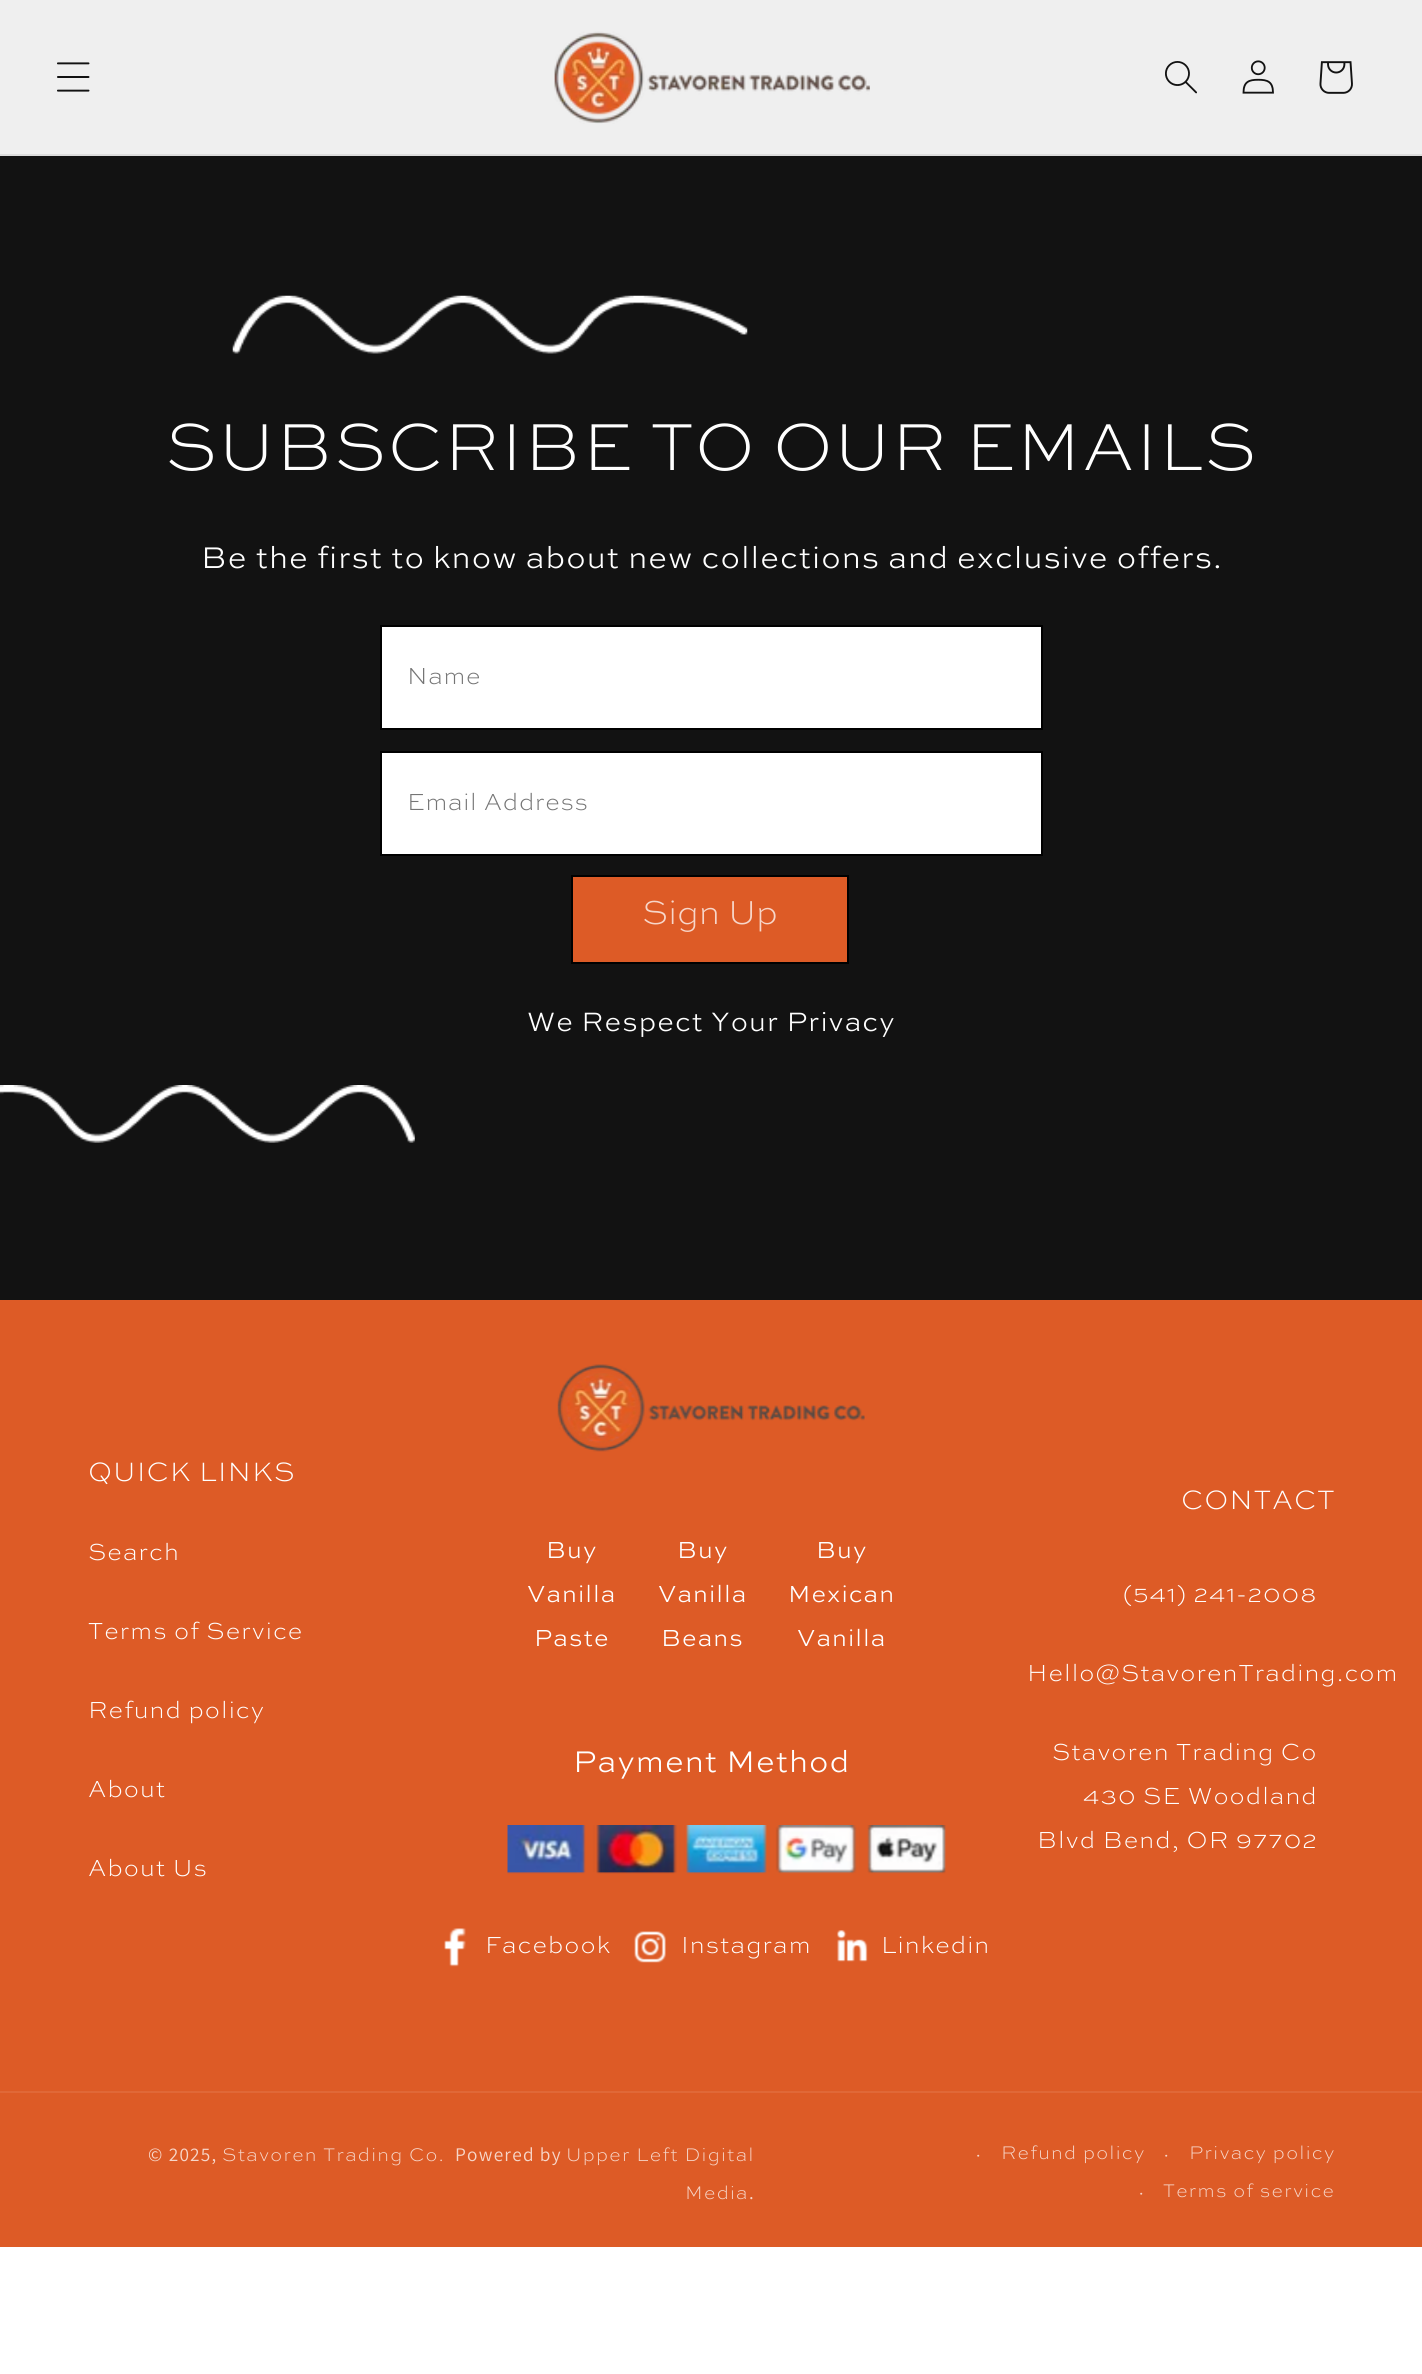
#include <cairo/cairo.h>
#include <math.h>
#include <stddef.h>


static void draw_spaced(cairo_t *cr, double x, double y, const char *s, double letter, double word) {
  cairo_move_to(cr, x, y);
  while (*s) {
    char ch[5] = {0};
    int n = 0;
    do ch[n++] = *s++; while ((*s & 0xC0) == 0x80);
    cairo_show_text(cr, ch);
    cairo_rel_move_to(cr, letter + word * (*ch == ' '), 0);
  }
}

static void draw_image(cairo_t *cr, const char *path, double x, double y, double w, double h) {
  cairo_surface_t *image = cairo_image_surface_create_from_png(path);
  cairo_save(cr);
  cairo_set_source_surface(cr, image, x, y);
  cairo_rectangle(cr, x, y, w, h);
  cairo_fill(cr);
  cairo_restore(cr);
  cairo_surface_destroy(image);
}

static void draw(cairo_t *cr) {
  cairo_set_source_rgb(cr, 1, 1, 1);
  cairo_paint(cr);
  cairo_set_source_rgb(cr, 239 / 255.0, 239 / 255.0, 239 / 255.0);
  cairo_rectangle(cr, 0, 0, 1422, 154);
  cairo_fill(cr);
  cairo_set_source_rgb(cr, 221 / 255.0, 221 / 255.0, 221 / 255.0);
  cairo_rectangle(cr, 0, 154, 1422, 2);
  cairo_fill(cr);
  draw_image(cr, "images/1.png", 57, 62, 33, 30);
  draw_image(cr, "images/2.png", 554, 31, 316, 93);
  draw_image(cr, "images/3.png", 1165, 61, 32, 33);
  draw_image(cr, "images/4.png", 1242, 60, 32, 34);
  draw_image(cr, "images/5.png", 1319, 61, 34, 33);
  cairo_set_source_rgb(cr, 18 / 255.0, 18 / 255.0, 18 / 255.0);
  cairo_rectangle(cr, 0, 156, 1422, 1144);
  cairo_fill(cr);
  draw_image(cr, "images/6.png", 232, 295, 516, 59);
  cairo_set_source_rgb(cr, 1, 1, 1);
  cairo_rectangle(cr, 381, 626, 661, 103);
  cairo_fill_preserve(cr);
  cairo_set_source_rgb(cr, 0, 0, 0);
  cairo_stroke(cr);
  cairo_set_source_rgb(cr, 1, 1, 1);
  cairo_rectangle(cr, 381, 752, 661, 103);
  cairo_fill_preserve(cr);
  cairo_set_source_rgb(cr, 0, 0, 0);
  cairo_stroke(cr);
  cairo_set_source_rgb(cr, 221 / 255.0, 91 / 255.0, 38 / 255.0);
  cairo_rectangle(cr, 572, 876, 276, 87);
  cairo_fill_preserve(cr);
  cairo_set_source_rgb(cr, 0, 0, 0);
  cairo_stroke(cr);
  draw_image(cr, "images/7.png", 0, 1085, 415, 58);
  cairo_set_source_rgb(cr, 221 / 255.0, 91 / 255.0, 38 / 255.0);
  cairo_rectangle(cr, 0, 1300, 1422, 947);
  cairo_fill(cr);
  draw_image(cr, "images/8.png", 557, 1364, 308, 88);
  draw_image(cr, "images/9.png", 507, 1825, 439, 49);
  draw_image(cr, "images/10.png", 444, 1928, 22, 39);
  draw_image(cr, "images/11.png", 634, 1931, 32, 32);
  draw_image(cr, "images/12.png", 837, 1930, 31, 32);
  cairo_set_source_rgb(cr, 224 / 255.0, 104 / 255.0, 55 / 255.0);
  cairo_rectangle(cr, 0, 2091, 1422, 2);
  cairo_fill(cr);
  cairo_select_font_face(cr, "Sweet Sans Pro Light", CAIRO_FONT_SLANT_NORMAL, CAIRO_FONT_WEIGHT_NORMAL);
  cairo_set_font_size(cr, 70);
  cairo_set_source_rgb(cr, 1, 1, 1);
  draw_spaced(cr, 165, 470, "SUBSCRIBE TO OUR EMAILS", 1.05, 0);
  cairo_select_font_face(cr, "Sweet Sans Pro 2 Light", CAIRO_FONT_SLANT_NORMAL, CAIRO_FONT_WEIGHT_NORMAL);
  cairo_set_font_size(cr, 31.5);
  draw_spaced(cr, 201, 568, "Be the first to know about new collections and exclusive offers.", 1.05, 0);
  cairo_select_font_face(cr, "Sweet Sans Pro Light", CAIRO_FONT_SLANT_NORMAL, CAIRO_FONT_WEIGHT_NORMAL);
  cairo_set_font_size(cr, 24.5);
  cairo_set_source_rgb(cr, 117 / 255.0, 117 / 255.0, 117 / 255.0);
  draw_spaced(cr, 407, 684, "Name", 0.75, 0);
  draw_spaced(cr, 407, 810, "Email Address", 0.75, 0);
  cairo_set_font_size(cr, 35);
  cairo_set_source_rgb(cr, 247 / 255.0, 214 / 255.0, 201 / 255.0);
  cairo_move_to(cr, 642, 924);
  cairo_show_text(cr, "Sign Up");
  cairo_select_font_face(cr, "Sweet Sans Pro 2 Light", CAIRO_FONT_SLANT_NORMAL, CAIRO_FONT_WEIGHT_NORMAL);
  cairo_set_font_size(cr, 28);
  cairo_set_source_rgb(cr, 1, 1, 1);
  draw_spaced(cr, 527, 1031, "We Respect Your Privacy", 1.05, 0);
  cairo_select_font_face(cr, "Sweet Sans Pro Light", CAIRO_FONT_SLANT_NORMAL, CAIRO_FONT_WEIGHT_NORMAL);
  draw_spaced(cr, 88, 1481, "QUICK LINKS", 1.05, 0);
  cairo_set_font_size(cr, 24.5);
  draw_spaced(cr, 88, 1560, "Search", 1.05, 0);
  draw_spaced(cr, 88, 1639, "Terms of Service", 1.05, 0);
  draw_spaced(cr, 88, 1718, "Refund policy", 1.05, 0);
  draw_spaced(cr, 88, 1797, "About", 1.05, 0);
  draw_spaced(cr, 88, 1876, "About Us", 1.05, 0);
  cairo_select_font_face(cr, "Sweet Sans Pro 2 Light", CAIRO_FONT_SLANT_NORMAL, CAIRO_FONT_WEIGHT_NORMAL);
  draw_spaced(cr, 546, 1558, "Buy", 1.05, 0);
  draw_spaced(cr, 527, 1602, "Vanilla", 1.05, 0);
  draw_spaced(cr, 534, 1646, "Paste", 1.05, 0);
  draw_spaced(cr, 677, 1558, "Buy", 1.05, 0);
  draw_spaced(cr, 658, 1602, "Vanilla", 1.05, 0);
  draw_spaced(cr, 661, 1646, "Beans", 1.05, 0);
  draw_spaced(cr, 816, 1558, "Buy", 1.05, 0);
  draw_spaced(cr, 788, 1602, "Mexican", 1.05, 0);
  draw_spaced(cr, 797, 1646, "Vanilla", 1.05, 0);
  cairo_set_font_size(cr, 31.5);
  draw_spaced(cr, 573, 1772, "Payment Method", 1.05, 0);
  cairo_select_font_face(cr, "Sweet Sans Pro Light", CAIRO_FONT_SLANT_NORMAL, CAIRO_FONT_WEIGHT_NORMAL);
  cairo_set_font_size(cr, 24.5);
  draw_spaced(cr, 485, 1953, "Facebook", 1.05, 0);
  draw_spaced(cr, 681, 1953, "Instagram", 1.05, 0);
  draw_spaced(cr, 881, 1953, "Linkedin", 1.05, 0);
  cairo_set_font_size(cr, 28);
  draw_spaced(cr, 1181, 1509, "CONTACT", 1.05, 0);
  cairo_set_font_size(cr, 24.5);
  draw_spaced(cr, 1123, 1602, "(541) 241-2008", 1.05, 0);
  draw_spaced(cr, 1027, 1681, "Hello@StavorenTrading.com", 1.05, 0);
  draw_spaced(cr, 1052, 1760, "Stavoren Trading Co", 1.05, 0);
  draw_spaced(cr, 1083, 1804, "430 SE Woodland", 1.05, 0);
  draw_spaced(cr, 1037, 1848, "Blvd Bend, OR 97702", 1.05, 0);
  cairo_select_font_face(cr, "Assistant", CAIRO_FONT_SLANT_NORMAL, CAIRO_FONT_WEIGHT_NORMAL);
  cairo_set_font_size(cr, 19.25);
  cairo_set_source_rgb(cr, 247 / 255.0, 214 / 255.0, 201 / 255.0);
  draw_spaced(cr, 148, 2161, "© 2025,", 1.25, 0);
  cairo_select_font_face(cr, "Sweet Sans Pro Light", CAIRO_FONT_SLANT_NORMAL, CAIRO_FONT_WEIGHT_NORMAL);
  draw_spaced(cr, 222, 2161, "Stavoren Trading Co.", 1.25, 0);
  cairo_select_font_face(cr, "Assistant", CAIRO_FONT_SLANT_NORMAL, CAIRO_FONT_WEIGHT_NORMAL);
  draw_spaced(cr, 455, 2161, "Powered by", 1.25, 0);
  cairo_select_font_face(cr, "Sweet Sans Pro Light", CAIRO_FONT_SLANT_NORMAL, CAIRO_FONT_WEIGHT_NORMAL);
  draw_spaced(cr, 566, 2161, "Upper Left Digital", 1.25, 0);
  draw_spaced(cr, 685, 2199, "Media", 1.25, 0);
  cairo_select_font_face(cr, "Assistant", CAIRO_FONT_SLANT_NORMAL, CAIRO_FONT_WEIGHT_NORMAL);
  draw_spaced(cr, 749, 2199, ".", 1.25, 0);
  cairo_select_font_face(cr, "Sweet Sans Pro Light", CAIRO_FONT_SLANT_NORMAL, CAIRO_FONT_WEIGHT_NORMAL);
  cairo_set_font_size(cr, 21);
  draw_spaced(cr, 971, 2161, "·", 1.25, 0);
  cairo_set_font_size(cr, 19.25);
  draw_spaced(cr, 1001, 2159, "Refund policy", 1.25, 0);
  cairo_set_font_size(cr, 21);
  draw_spaced(cr, 1159, 2161, "·", 1.25, 0);
  cairo_set_font_size(cr, 19.25);
  draw_spaced(cr, 1189, 2159, "Privacy policy", 1.25, 0);
  cairo_set_font_size(cr, 21);
  draw_spaced(cr, 1134, 2199, "·", 1.25, 0);
  cairo_set_font_size(cr, 19.25);
  draw_spaced(cr, 1163, 2197, "Terms of service", 1.25, 0);
}

int main(void) {
  cairo_surface_t *surface = cairo_image_surface_create(CAIRO_FORMAT_RGB24, 1422, 2374);
  cairo_t *cr = cairo_create(surface);
  cairo_font_options_t *options = cairo_font_options_create();
  cairo_font_options_set_hint_metrics(options, CAIRO_HINT_METRICS_OFF);
  cairo_font_options_set_hint_style(options, CAIRO_HINT_STYLE_NONE);
  cairo_set_font_options(cr, options);
  cairo_set_miter_limit(cr, 4);
  draw(cr);
  cairo_surface_write_to_png(surface, "out.png");
  cairo_font_options_destroy(options);
  cairo_destroy(cr);
  cairo_surface_destroy(surface);
  return 0;
}
